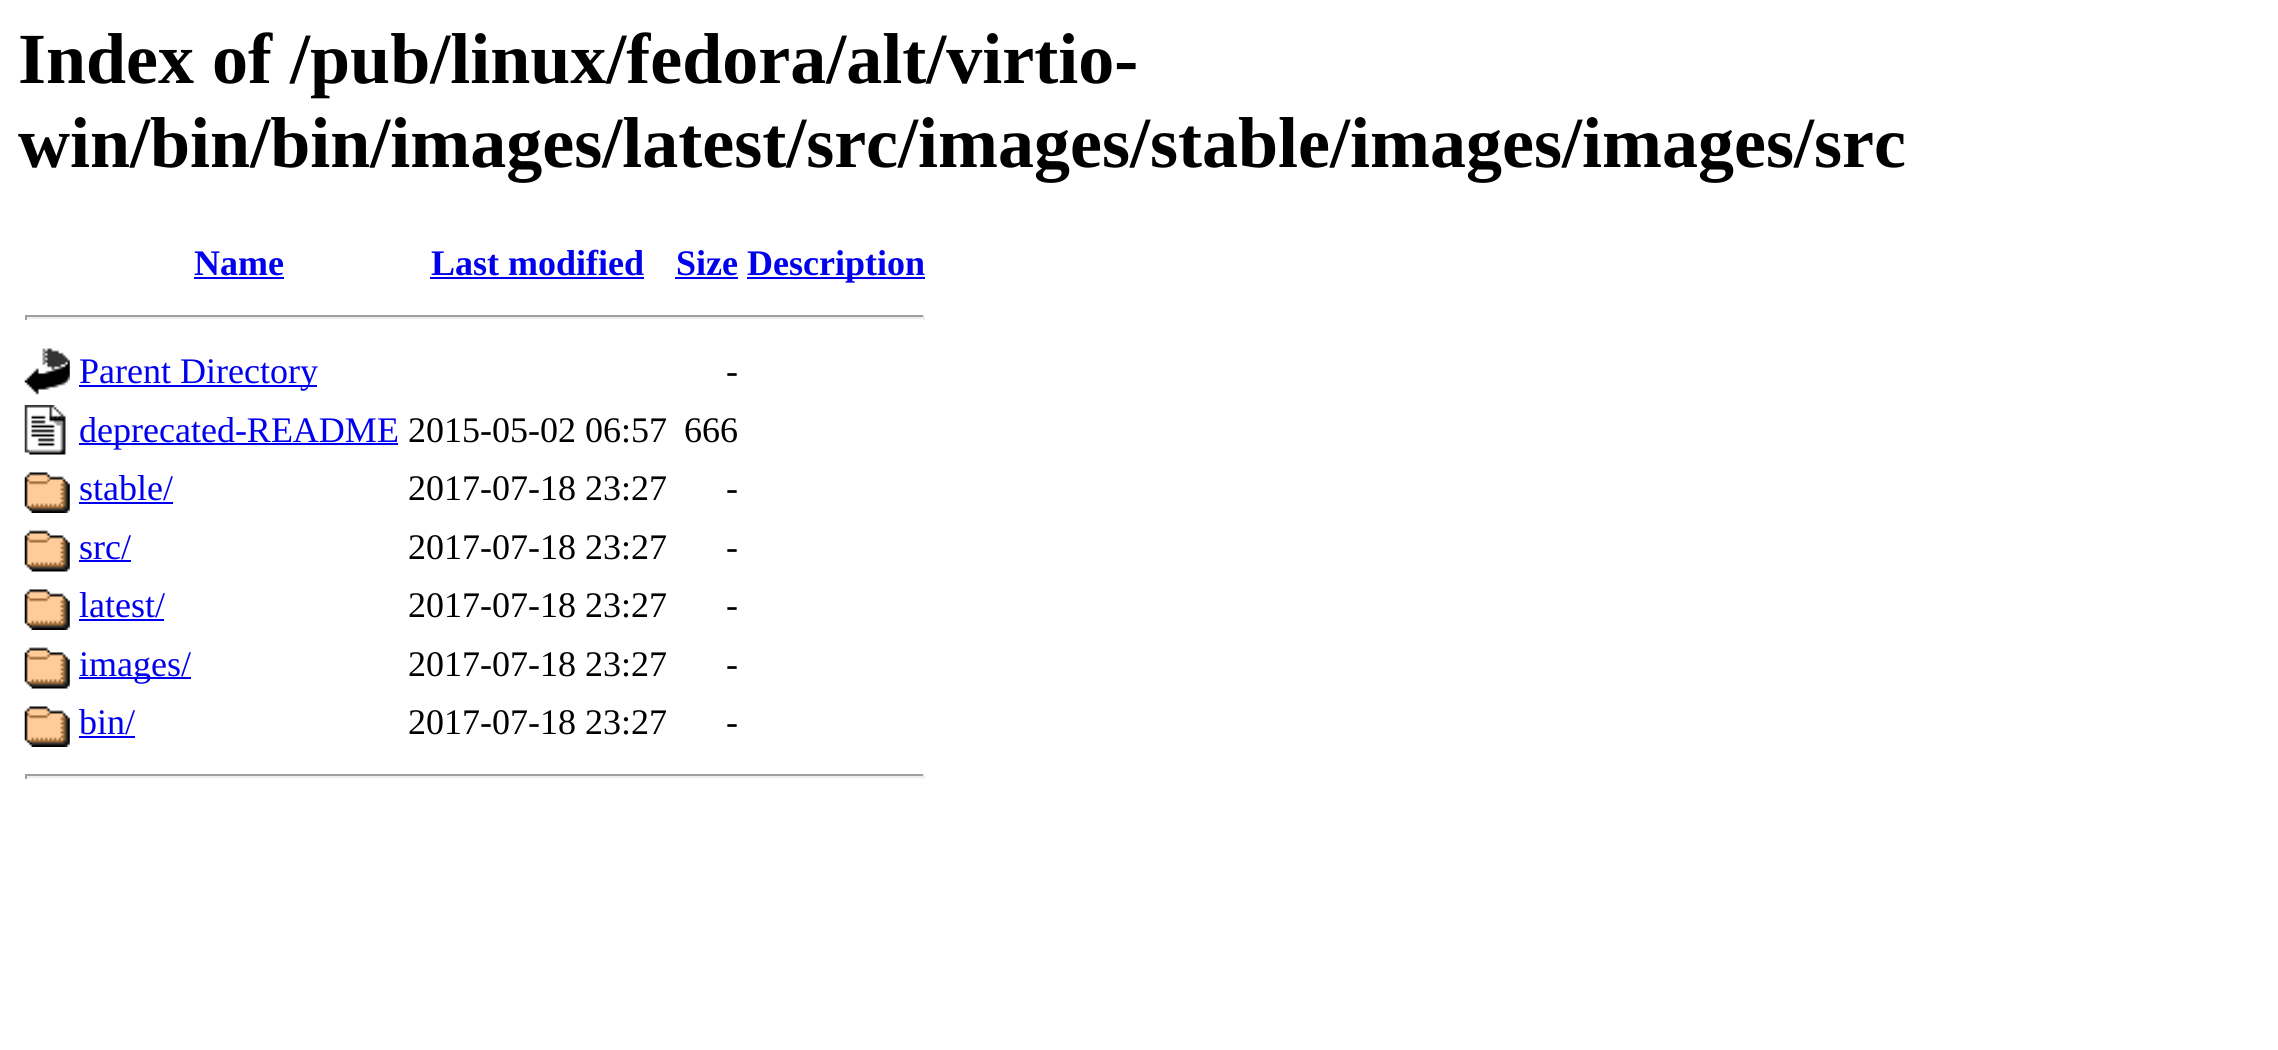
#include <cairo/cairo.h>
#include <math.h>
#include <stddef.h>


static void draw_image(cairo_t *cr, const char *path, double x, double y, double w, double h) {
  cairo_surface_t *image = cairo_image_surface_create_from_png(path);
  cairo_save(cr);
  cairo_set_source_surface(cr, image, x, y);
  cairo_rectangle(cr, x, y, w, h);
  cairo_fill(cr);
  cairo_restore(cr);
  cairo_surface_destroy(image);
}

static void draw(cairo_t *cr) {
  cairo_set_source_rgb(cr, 1, 1, 1);
  cairo_paint(cr);
  cairo_set_source_rgb(cr, 0, 0, 238 / 255.0);
  cairo_rectangle(cr, 194, 277, 90, 2);
  cairo_fill(cr);
  cairo_rectangle(cr, 430, 277, 214, 2);
  cairo_fill(cr);
  cairo_rectangle(cr, 675, 277, 63, 2);
  cairo_fill(cr);
  cairo_rectangle(cr, 747, 277, 178, 2);
  cairo_fill(cr);
  cairo_set_source_rgb(cr, 159 / 255.0, 159 / 255.0, 159 / 255.0);
  cairo_rectangle(cr, 25, 315, 900, 2);
  cairo_fill(cr);
  cairo_set_source_rgb(cr, 238 / 255.0, 238 / 255.0, 238 / 255.0);
  cairo_rectangle(cr, 923, 315, 2, 5);
  cairo_fill(cr);
  cairo_rectangle(cr, 25, 317, 900, 2);
  cairo_fill(cr);
  cairo_set_source_rgb(cr, 159 / 255.0, 159 / 255.0, 159 / 255.0);
  cairo_rectangle(cr, 25, 315, 2, 5);
  cairo_fill(cr);
  draw_image(cr, "images/1.png", 24, 348, 46, 47);
  cairo_set_source_rgb(cr, 0, 0, 238 / 255.0);
  cairo_rectangle(cr, 79, 385, 238, 2);
  cairo_fill(cr);
  draw_image(cr, "images/2.png", 24, 405, 42, 50);
  cairo_rectangle(cr, 79, 443, 319, 2);
  cairo_fill(cr);
  draw_image(cr, "images/3.png", 24, 472, 46, 41);
  cairo_rectangle(cr, 79, 502, 94, 2);
  cairo_fill(cr);
  draw_image(cr, "images/4.png", 24, 530, 46, 42);
  cairo_rectangle(cr, 79, 560, 52, 2);
  cairo_fill(cr);
  draw_image(cr, "images/3.png", 24, 589, 46, 41);
  cairo_rectangle(cr, 79, 619, 85, 2);
  cairo_fill(cr);
  draw_image(cr, "images/4.png", 24, 647, 46, 42);
  cairo_rectangle(cr, 79, 677, 112, 2);
  cairo_fill(cr);
  draw_image(cr, "images/3.png", 24, 706, 46, 41);
  cairo_rectangle(cr, 79, 736, 56, 2);
  cairo_fill(cr);
  cairo_set_source_rgb(cr, 159 / 255.0, 159 / 255.0, 159 / 255.0);
  cairo_rectangle(cr, 25, 774, 900, 2);
  cairo_fill(cr);
  cairo_set_source_rgb(cr, 238 / 255.0, 238 / 255.0, 238 / 255.0);
  cairo_rectangle(cr, 923, 774, 2, 5);
  cairo_fill(cr);
  cairo_rectangle(cr, 25, 776, 900, 2);
  cairo_fill(cr);
  cairo_set_source_rgb(cr, 159 / 255.0, 159 / 255.0, 159 / 255.0);
  cairo_rectangle(cr, 25, 774, 2, 5);
  cairo_fill(cr);
  cairo_select_font_face(cr, "Liberation Serif", CAIRO_FONT_SLANT_NORMAL, CAIRO_FONT_WEIGHT_BOLD);
  cairo_set_font_size(cr, 72);
  cairo_set_source_rgb(cr, 0, 0, 0);
  cairo_move_to(cr, 18, 83);
  cairo_show_text(cr, "Index of /pub/linux/fedora/alt/virtio-");
  cairo_move_to(cr, 18, 167);
  cairo_show_text(cr, "win/bin/bin/images/latest/src/images/stable/images/images/src");
  cairo_set_font_size(cr, 36);
  cairo_set_source_rgb(cr, 0, 0, 238 / 255.0);
  cairo_move_to(cr, 194, 275);
  cairo_show_text(cr, "Name");
  cairo_move_to(cr, 431, 275);
  cairo_show_text(cr, "Last modified");
  cairo_move_to(cr, 676, 275);
  cairo_show_text(cr, "Size");
  cairo_move_to(cr, 747, 275);
  cairo_show_text(cr, "Description");
  cairo_select_font_face(cr, "Liberation Serif", CAIRO_FONT_SLANT_NORMAL, CAIRO_FONT_WEIGHT_NORMAL);
  cairo_move_to(cr, 79, 383);
  cairo_show_text(cr, "Parent Directory");
  cairo_set_source_rgb(cr, 0, 0, 0);
  cairo_move_to(cr, 726, 383);
  cairo_show_text(cr, "-");
  cairo_set_source_rgb(cr, 0, 0, 238 / 255.0);
  cairo_move_to(cr, 79, 442);
  cairo_show_text(cr, "deprecated-README");
  cairo_set_source_rgb(cr, 0, 0, 0);
  cairo_move_to(cr, 408, 442);
  cairo_show_text(cr, "2015-05-02 06:57");
  cairo_move_to(cr, 684, 442);
  cairo_show_text(cr, "666");
  cairo_set_source_rgb(cr, 0, 0, 238 / 255.0);
  cairo_move_to(cr, 79, 500);
  cairo_show_text(cr, "stable/");
  cairo_set_source_rgb(cr, 0, 0, 0);
  cairo_move_to(cr, 408, 500);
  cairo_show_text(cr, "2017-07-18 23:27");
  cairo_move_to(cr, 726, 500);
  cairo_show_text(cr, "-");
  cairo_set_source_rgb(cr, 0, 0, 238 / 255.0);
  cairo_move_to(cr, 79, 559);
  cairo_show_text(cr, "src/");
  cairo_set_source_rgb(cr, 0, 0, 0);
  cairo_move_to(cr, 408, 559);
  cairo_show_text(cr, "2017-07-18 23:27");
  cairo_move_to(cr, 726, 559);
  cairo_show_text(cr, "-");
  cairo_set_source_rgb(cr, 0, 0, 238 / 255.0);
  cairo_move_to(cr, 79, 617);
  cairo_show_text(cr, "latest/");
  cairo_set_source_rgb(cr, 0, 0, 0);
  cairo_move_to(cr, 408, 617);
  cairo_show_text(cr, "2017-07-18 23:27");
  cairo_move_to(cr, 726, 617);
  cairo_show_text(cr, "-");
  cairo_set_source_rgb(cr, 0, 0, 238 / 255.0);
  cairo_move_to(cr, 79, 676);
  cairo_show_text(cr, "images/");
  cairo_set_source_rgb(cr, 0, 0, 0);
  cairo_move_to(cr, 408, 676);
  cairo_show_text(cr, "2017-07-18 23:27");
  cairo_move_to(cr, 726, 676);
  cairo_show_text(cr, "-");
  cairo_set_source_rgb(cr, 0, 0, 238 / 255.0);
  cairo_move_to(cr, 79, 734);
  cairo_show_text(cr, "bin/");
  cairo_set_source_rgb(cr, 0, 0, 0);
  cairo_move_to(cr, 408, 734);
  cairo_show_text(cr, "2017-07-18 23:27");
  cairo_move_to(cr, 726, 734);
  cairo_show_text(cr, "-");
}

int main(void) {
  cairo_surface_t *surface = cairo_image_surface_create(CAIRO_FORMAT_RGB24, 2278, 1050);
  cairo_t *cr = cairo_create(surface);
  cairo_font_options_t *options = cairo_font_options_create();
  cairo_font_options_set_hint_metrics(options, CAIRO_HINT_METRICS_OFF);
  cairo_font_options_set_hint_style(options, CAIRO_HINT_STYLE_NONE);
  cairo_set_font_options(cr, options);
  cairo_set_miter_limit(cr, 4);
  draw(cr);
  cairo_surface_write_to_png(surface, "out.png");
  cairo_font_options_destroy(options);
  cairo_destroy(cr);
  cairo_surface_destroy(surface);
  return 0;
}
